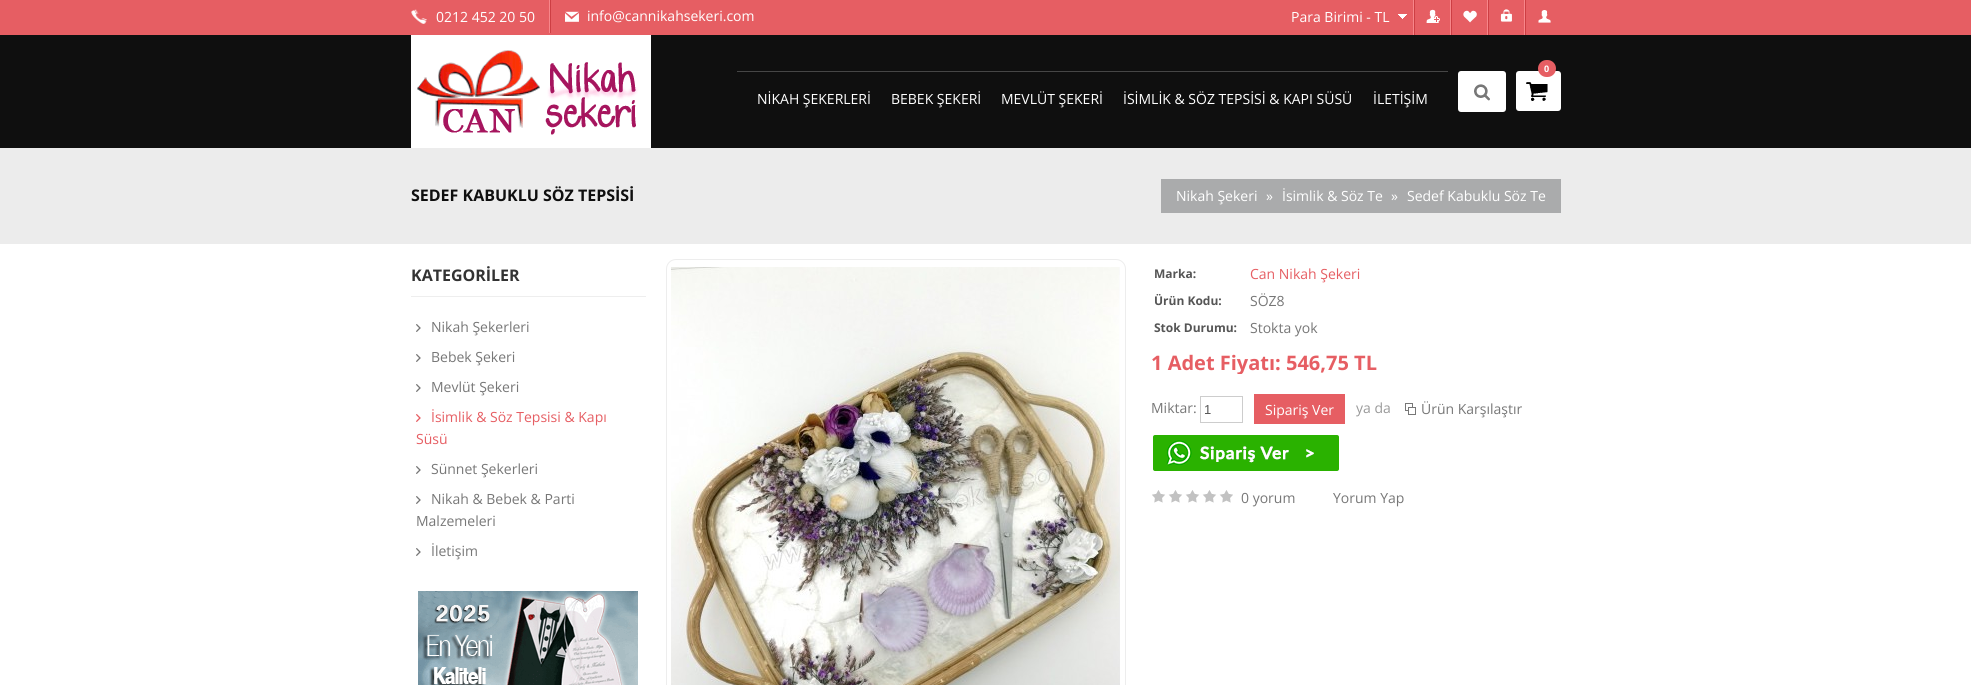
#include <cairo/cairo.h>
#include <math.h>
#include <stddef.h>


static void rounded_rect(cairo_t *cr, double x, double y, double w, double h, double r) {
  cairo_new_sub_path(cr);
  cairo_arc(cr, x + w - r, y + h - r, r, 0, M_PI / 2);
  cairo_arc(cr, x + r, y + h - r, r, M_PI / 2, M_PI);
  cairo_arc(cr, x + r, y + r, r, M_PI, 1.5 * M_PI);
  cairo_arc(cr, x + w - r, y + r, r, 1.5 * M_PI, 2 * M_PI);
  cairo_close_path(cr);
}

static void draw_image(cairo_t *cr, const char *path, double x, double y, double w, double h) {
  cairo_surface_t *image = cairo_image_surface_create_from_png(path);
  cairo_save(cr);
  cairo_set_source_surface(cr, image, x, y);
  cairo_rectangle(cr, x, y, w, h);
  cairo_fill(cr);
  cairo_restore(cr);
  cairo_surface_destroy(image);
}

static void draw(cairo_t *cr) {
  cairo_set_source_rgb(cr, 1, 1, 1);
  cairo_paint(cr);
  cairo_set_source_rgb(cr, 15 / 255.0, 15 / 255.0, 15 / 255.0);
  cairo_rectangle(cr, 0, 35, 1971, 113);
  cairo_fill(cr);
  cairo_set_source_rgb(cr, 230 / 255.0, 94 / 255.0, 99 / 255.0);
  cairo_rectangle(cr, 0, 0, 1971, 35);
  cairo_fill(cr);
  draw_image(cr, "images/1.png", 411, 9, 16, 15);
  cairo_set_source_rgb(cr, 247 / 255.0, 134 / 255.0, 138 / 255.0);
  cairo_rectangle(cr, 549, 0, 1, 33);
  cairo_fill(cr);
  draw_image(cr, "images/2.png", 565, 11, 14, 11);
  cairo_set_source_rgb(cr, 205 / 255.0, 62 / 255.0, 67 / 255.0);
  cairo_rectangle(cr, 550, 0, 1, 33);
  cairo_fill(cr);
  cairo_set_source_rgb(cr, 247 / 255.0, 134 / 255.0, 138 / 255.0);
  cairo_rectangle(cr, 1413, 0, 1, 35);
  cairo_fill(cr);
  draw_image(cr, "images/3.png", 1398, 14, 9, 5);
  draw_image(cr, "images/4.png", 1426, 9, 14, 14);
  cairo_rectangle(cr, 1450, 0, 1, 35);
  cairo_fill(cr);
  cairo_set_source_rgb(cr, 205 / 255.0, 62 / 255.0, 67 / 255.0);
  cairo_rectangle(cr, 1414, 0, 1, 35);
  cairo_fill(cr);
  draw_image(cr, "images/5.png", 1463, 10, 14, 13);
  cairo_set_source_rgb(cr, 247 / 255.0, 134 / 255.0, 138 / 255.0);
  cairo_rectangle(cr, 1487, 0, 1, 35);
  cairo_fill(cr);
  cairo_set_source_rgb(cr, 205 / 255.0, 62 / 255.0, 67 / 255.0);
  cairo_rectangle(cr, 1451, 0, 1, 35);
  cairo_fill(cr);
  draw_image(cr, "images/6.png", 1500, 9, 12, 13);
  cairo_set_source_rgb(cr, 247 / 255.0, 134 / 255.0, 138 / 255.0);
  cairo_rectangle(cr, 1524, 0, 1, 35);
  cairo_fill(cr);
  cairo_set_source_rgb(cr, 205 / 255.0, 62 / 255.0, 67 / 255.0);
  cairo_rectangle(cr, 1488, 0, 1, 35);
  cairo_fill(cr);
  draw_image(cr, "images/7.png", 1538, 10, 13, 13);
  cairo_rectangle(cr, 1525, 0, 1, 35);
  cairo_fill(cr);
  draw_image(cr, "images/8.png", 411, 35, 240, 113);
  cairo_set_source_rgb(cr, 1, 1, 1);
  rounded_rect(cr, 1516, 71, 45, 40, 3);
  cairo_fill(cr);
  draw_image(cr, "images/9.png", 1526, 82, 22, 19);
  cairo_set_source_rgb(cr, 230 / 255.0, 94 / 255.0, 99 / 255.0);
  rounded_rect(cr, 1538, 60, 18, 17, 8.5);
  cairo_fill(cr);
  cairo_set_source_rgb(cr, 1, 1, 1);
  rounded_rect(cr, 1458, 71, 48, 41, 3);
  cairo_fill(cr);
  draw_image(cr, "images/10.png", 1474, 84, 16, 17);
  cairo_set_source_rgb(cr, 70 / 255.0, 70 / 255.0, 70 / 255.0);
  cairo_rectangle(cr, 737, 71, 711, 1);
  cairo_fill(cr);
  cairo_set_source_rgb(cr, 236 / 255.0, 236 / 255.0, 236 / 255.0);
  cairo_rectangle(cr, 0, 148, 1971, 96);
  cairo_fill(cr);
  cairo_rectangle(cr, 1200.5, 396.5, 42, 26);
  cairo_set_source_rgb(cr, 205 / 255.0, 205 / 255.0, 205 / 255.0);
  cairo_set_line_width(cr, 1);
  cairo_stroke(cr);
  cairo_set_source_rgb(cr, 230 / 255.0, 94 / 255.0, 99 / 255.0);
  cairo_rectangle(cr, 1254, 394, 91, 30);
  cairo_fill(cr);
  draw_image(cr, "images/11.png", 1405, 403, 11, 12);
  draw_image(cr, "images/12.png", 1153, 435, 186, 36);
  draw_image(cr, "images/13.png", 1152, 490, 81, 13);
  rounded_rect(cr, 666.5, 259.5, 459, 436, 9.5);
  cairo_set_source_rgb(cr, 237 / 255.0, 237 / 255.0, 237 / 255.0);
  cairo_stroke(cr);
  draw_image(cr, "images/14.png", 671, 267, 449, 418);
  cairo_set_source_rgb(cr, 170 / 255.0, 171 / 255.0, 172 / 255.0);
  cairo_rectangle(cr, 1161, 179, 400, 34);
  cairo_fill(cr);
  cairo_set_source_rgb(cr, 238 / 255.0, 238 / 255.0, 238 / 255.0);
  cairo_rectangle(cr, 411, 296, 235, 1);
  cairo_fill(cr);
  draw_image(cr, "images/15.png", 416, 324, 5, 8);
  draw_image(cr, "images/15.png", 416, 354, 5, 8);
  draw_image(cr, "images/15.png", 416, 384, 5, 8);
  draw_image(cr, "images/16.png", 416, 414, 5, 8);
  draw_image(cr, "images/15.png", 416, 466, 5, 8);
  draw_image(cr, "images/15.png", 416, 496, 5, 8);
  draw_image(cr, "images/15.png", 416, 548, 5, 8);
  draw_image(cr, "images/17.png", 418, 591, 220, 94);
  cairo_select_font_face(cr, "Open Sans", CAIRO_FONT_SLANT_NORMAL, CAIRO_FONT_WEIGHT_NORMAL);
  cairo_set_font_size(cr, 14);
  cairo_set_source_rgb(cr, 1, 1, 1);
  cairo_move_to(cr, 436, 22);
  cairo_show_text(cr, "0212 452 20 50");
  cairo_move_to(cr, 587, 21);
  cairo_show_text(cr, "info@cannikahsekeri.com");
  cairo_move_to(cr, 1291, 22);
  cairo_show_text(cr, "Para Birimi - TL");
  cairo_select_font_face(cr, "Open Sans", CAIRO_FONT_SLANT_NORMAL, CAIRO_FONT_WEIGHT_BOLD);
  cairo_set_font_size(cr, 9);
  cairo_move_to(cr, 1544, 72);
  cairo_show_text(cr, "0");
  cairo_select_font_face(cr, "Open Sans", CAIRO_FONT_SLANT_NORMAL, CAIRO_FONT_WEIGHT_NORMAL);
  cairo_set_font_size(cr, 14);
  cairo_move_to(cr, 757, 104);
  cairo_show_text(cr, "NİKAH ŞEKERLERİ");
  cairo_move_to(cr, 891, 104);
  cairo_show_text(cr, "BEBEK ŞEKERİ");
  cairo_move_to(cr, 1001, 104);
  cairo_show_text(cr, "MEVLÜT ŞEKERİ");
  cairo_move_to(cr, 1123, 104);
  cairo_show_text(cr, "İSİMLİK & SÖZ TEPSİSİ & KAPI SÜSÜ");
  cairo_move_to(cr, 1373, 104);
  cairo_show_text(cr, "İLETİŞİM");
  cairo_select_font_face(cr, "Open Sans", CAIRO_FONT_SLANT_NORMAL, CAIRO_FONT_WEIGHT_BOLD);
  cairo_set_font_size(cr, 16);
  cairo_set_source_rgb(cr, 15 / 255.0, 15 / 255.0, 15 / 255.0);
  cairo_move_to(cr, 411, 201);
  cairo_show_text(cr, "SEDEF KABUKLU SÖZ TEPSİSİ");
  cairo_set_font_size(cr, 12);
  cairo_set_source_rgb(cr, 85 / 255.0, 85 / 255.0, 85 / 255.0);
  cairo_move_to(cr, 1154, 278);
  cairo_show_text(cr, "Marka:");
  cairo_select_font_face(cr, "Open Sans", CAIRO_FONT_SLANT_NORMAL, CAIRO_FONT_WEIGHT_NORMAL);
  cairo_set_font_size(cr, 14);
  cairo_set_source_rgb(cr, 230 / 255.0, 94 / 255.0, 99 / 255.0);
  cairo_move_to(cr, 1250, 279);
  cairo_show_text(cr, "Can Nikah Şekeri");
  cairo_select_font_face(cr, "Open Sans", CAIRO_FONT_SLANT_NORMAL, CAIRO_FONT_WEIGHT_BOLD);
  cairo_set_font_size(cr, 12);
  cairo_set_source_rgb(cr, 85 / 255.0, 85 / 255.0, 85 / 255.0);
  cairo_move_to(cr, 1154, 305);
  cairo_show_text(cr, "Ürün Kodu:");
  cairo_select_font_face(cr, "Open Sans", CAIRO_FONT_SLANT_NORMAL, CAIRO_FONT_WEIGHT_NORMAL);
  cairo_set_font_size(cr, 14);
  cairo_set_source_rgb(cr, 119 / 255.0, 119 / 255.0, 119 / 255.0);
  cairo_move_to(cr, 1250, 306);
  cairo_show_text(cr, "SÖZ8");
  cairo_select_font_face(cr, "Open Sans", CAIRO_FONT_SLANT_NORMAL, CAIRO_FONT_WEIGHT_BOLD);
  cairo_set_font_size(cr, 12);
  cairo_set_source_rgb(cr, 85 / 255.0, 85 / 255.0, 85 / 255.0);
  cairo_move_to(cr, 1154, 332);
  cairo_show_text(cr, "Stok Durumu:");
  cairo_select_font_face(cr, "Open Sans", CAIRO_FONT_SLANT_NORMAL, CAIRO_FONT_WEIGHT_NORMAL);
  cairo_set_font_size(cr, 14);
  cairo_set_source_rgb(cr, 119 / 255.0, 119 / 255.0, 119 / 255.0);
  cairo_move_to(cr, 1250, 333);
  cairo_show_text(cr, "Stokta yok");
  cairo_save(cr);
  cairo_rectangle(cr, 1151, 352, 410, 22);
  cairo_clip(cr);
  cairo_select_font_face(cr, "Open Sans", CAIRO_FONT_SLANT_NORMAL, CAIRO_FONT_WEIGHT_BOLD);
  cairo_set_font_size(cr, 20);
  cairo_set_source_rgb(cr, 230 / 255.0, 94 / 255.0, 99 / 255.0);
  cairo_move_to(cr, 1151, 370);
  cairo_show_text(cr, "1 Adet Fiyatı:");
  cairo_restore(cr);
  cairo_select_font_face(cr, "Open Sans", CAIRO_FONT_SLANT_NORMAL, CAIRO_FONT_WEIGHT_BOLD);
  cairo_set_font_size(cr, 20);
  cairo_set_source_rgb(cr, 230 / 255.0, 94 / 255.0, 99 / 255.0);
  cairo_move_to(cr, 1286, 370);
  cairo_show_text(cr, "546,75 TL");
  cairo_select_font_face(cr, "Open Sans", CAIRO_FONT_SLANT_NORMAL, CAIRO_FONT_WEIGHT_NORMAL);
  cairo_set_font_size(cr, 14);
  cairo_set_source_rgb(cr, 119 / 255.0, 119 / 255.0, 119 / 255.0);
  cairo_move_to(cr, 1151, 413);
  cairo_show_text(cr, "Miktar:");
  cairo_select_font_face(cr, "Liberation Sans", CAIRO_FONT_SLANT_NORMAL, CAIRO_FONT_WEIGHT_NORMAL);
  cairo_set_font_size(cr, 13);
  cairo_set_source_rgb(cr, 85 / 255.0, 85 / 255.0, 85 / 255.0);
  cairo_move_to(cr, 1204, 414);
  cairo_show_text(cr, "1");
  cairo_select_font_face(cr, "Open Sans", CAIRO_FONT_SLANT_NORMAL, CAIRO_FONT_WEIGHT_NORMAL);
  cairo_set_font_size(cr, 14);
  cairo_set_source_rgb(cr, 1, 1, 1);
  cairo_move_to(cr, 1265, 415);
  cairo_show_text(cr, "Sipariş Ver");
  cairo_set_source_rgb(cr, 153 / 255.0, 153 / 255.0, 153 / 255.0);
  cairo_move_to(cr, 1356, 413);
  cairo_show_text(cr, "ya da");
  cairo_set_source_rgb(cr, 119 / 255.0, 119 / 255.0, 119 / 255.0);
  cairo_move_to(cr, 1421, 414);
  cairo_show_text(cr, "Ürün Karşılaştır");
  cairo_move_to(cr, 1241, 503);
  cairo_show_text(cr, "0 yorum");
  cairo_move_to(cr, 1333, 503);
  cairo_show_text(cr, "Yorum Yap");
  cairo_set_source_rgb(cr, 1, 1, 1);
  cairo_move_to(cr, 1176, 201);
  cairo_show_text(cr, "Nikah Şekeri");
  cairo_move_to(cr, 1266, 201);
  cairo_show_text(cr, "»");
  cairo_move_to(cr, 1282, 201);
  cairo_show_text(cr, "İsimlik & Söz Te");
  cairo_move_to(cr, 1391, 201);
  cairo_show_text(cr, "»");
  cairo_move_to(cr, 1407, 201);
  cairo_show_text(cr, "Sedef Kabuklu Söz Te");
  cairo_select_font_face(cr, "Open Sans", CAIRO_FONT_SLANT_NORMAL, CAIRO_FONT_WEIGHT_BOLD);
  cairo_set_font_size(cr, 16);
  cairo_set_source_rgb(cr, 51 / 255.0, 51 / 255.0, 51 / 255.0);
  cairo_move_to(cr, 411, 281);
  cairo_show_text(cr, "KATEGORİLER");
  cairo_select_font_face(cr, "Open Sans", CAIRO_FONT_SLANT_NORMAL, CAIRO_FONT_WEIGHT_NORMAL);
  cairo_set_font_size(cr, 14);
  cairo_set_source_rgb(cr, 119 / 255.0, 119 / 255.0, 119 / 255.0);
  cairo_move_to(cr, 431, 332);
  cairo_show_text(cr, "Nikah Şekerleri");
  cairo_move_to(cr, 431, 362);
  cairo_show_text(cr, "Bebek Şekeri");
  cairo_move_to(cr, 431, 392);
  cairo_show_text(cr, "Mevlüt Şekeri");
  cairo_set_source_rgb(cr, 230 / 255.0, 94 / 255.0, 99 / 255.0);
  cairo_move_to(cr, 431, 422);
  cairo_show_text(cr, "İsimlik & Söz Tepsisi & Kapı");
  cairo_move_to(cr, 416, 444);
  cairo_show_text(cr, "Süsü");
  cairo_set_source_rgb(cr, 119 / 255.0, 119 / 255.0, 119 / 255.0);
  cairo_move_to(cr, 431, 474);
  cairo_show_text(cr, "Sünnet Şekerleri");
  cairo_move_to(cr, 431, 504);
  cairo_show_text(cr, "Nikah & Bebek & Parti");
  cairo_move_to(cr, 416, 526);
  cairo_show_text(cr, "Malzemeleri");
  cairo_move_to(cr, 431, 556);
  cairo_show_text(cr, "İletişim");
}

int main(void) {
  cairo_surface_t *surface = cairo_image_surface_create(CAIRO_FORMAT_RGB24, 1971, 685);
  cairo_t *cr = cairo_create(surface);
  cairo_font_options_t *options = cairo_font_options_create();
  cairo_font_options_set_hint_metrics(options, CAIRO_HINT_METRICS_OFF);
  cairo_font_options_set_hint_style(options, CAIRO_HINT_STYLE_NONE);
  cairo_set_font_options(cr, options);
  cairo_set_miter_limit(cr, 4);
  draw(cr);
  cairo_surface_write_to_png(surface, "out.png");
  cairo_font_options_destroy(options);
  cairo_destroy(cr);
  cairo_surface_destroy(surface);
  return 0;
}
